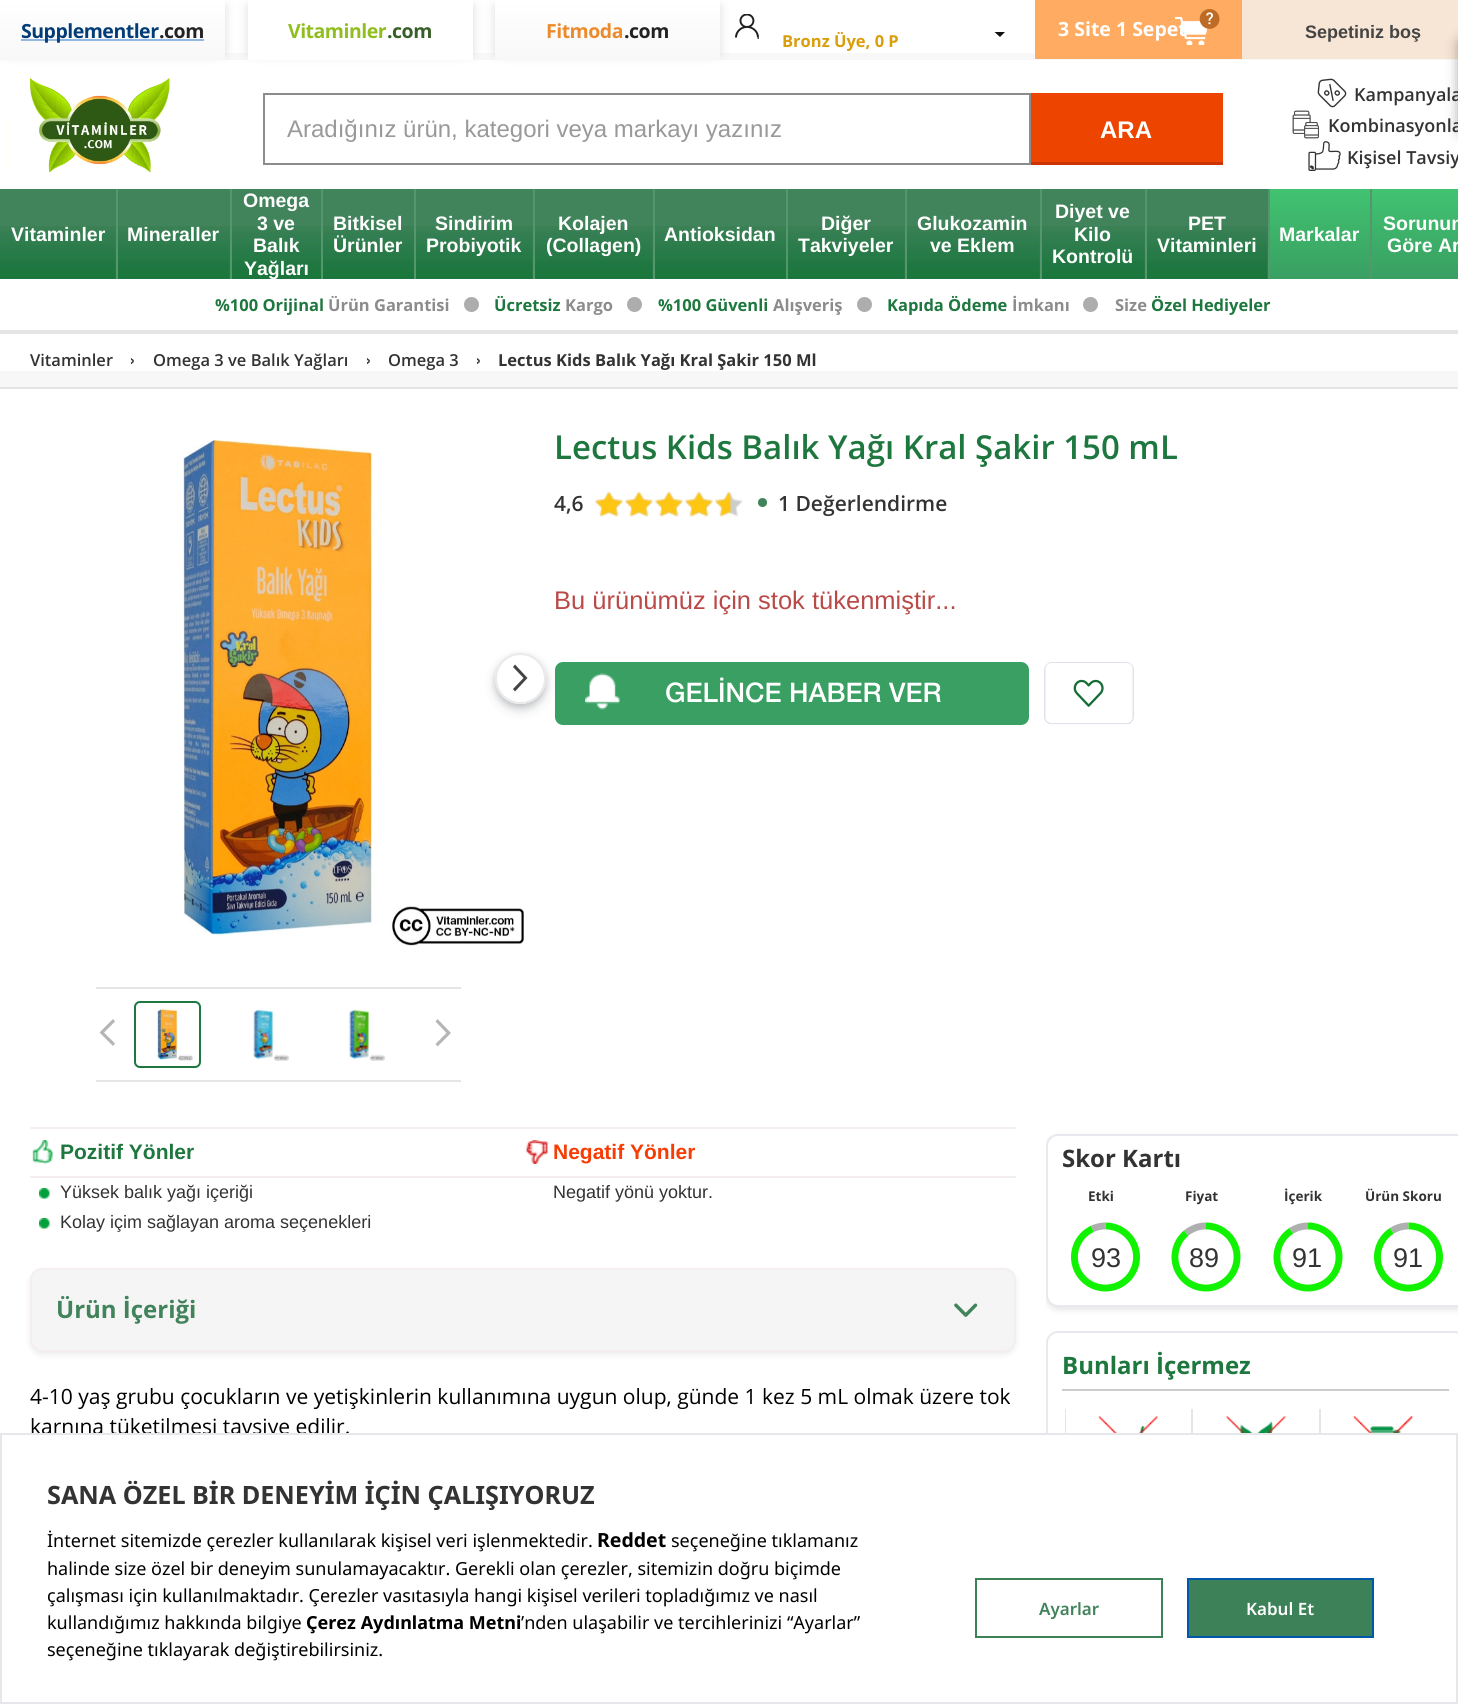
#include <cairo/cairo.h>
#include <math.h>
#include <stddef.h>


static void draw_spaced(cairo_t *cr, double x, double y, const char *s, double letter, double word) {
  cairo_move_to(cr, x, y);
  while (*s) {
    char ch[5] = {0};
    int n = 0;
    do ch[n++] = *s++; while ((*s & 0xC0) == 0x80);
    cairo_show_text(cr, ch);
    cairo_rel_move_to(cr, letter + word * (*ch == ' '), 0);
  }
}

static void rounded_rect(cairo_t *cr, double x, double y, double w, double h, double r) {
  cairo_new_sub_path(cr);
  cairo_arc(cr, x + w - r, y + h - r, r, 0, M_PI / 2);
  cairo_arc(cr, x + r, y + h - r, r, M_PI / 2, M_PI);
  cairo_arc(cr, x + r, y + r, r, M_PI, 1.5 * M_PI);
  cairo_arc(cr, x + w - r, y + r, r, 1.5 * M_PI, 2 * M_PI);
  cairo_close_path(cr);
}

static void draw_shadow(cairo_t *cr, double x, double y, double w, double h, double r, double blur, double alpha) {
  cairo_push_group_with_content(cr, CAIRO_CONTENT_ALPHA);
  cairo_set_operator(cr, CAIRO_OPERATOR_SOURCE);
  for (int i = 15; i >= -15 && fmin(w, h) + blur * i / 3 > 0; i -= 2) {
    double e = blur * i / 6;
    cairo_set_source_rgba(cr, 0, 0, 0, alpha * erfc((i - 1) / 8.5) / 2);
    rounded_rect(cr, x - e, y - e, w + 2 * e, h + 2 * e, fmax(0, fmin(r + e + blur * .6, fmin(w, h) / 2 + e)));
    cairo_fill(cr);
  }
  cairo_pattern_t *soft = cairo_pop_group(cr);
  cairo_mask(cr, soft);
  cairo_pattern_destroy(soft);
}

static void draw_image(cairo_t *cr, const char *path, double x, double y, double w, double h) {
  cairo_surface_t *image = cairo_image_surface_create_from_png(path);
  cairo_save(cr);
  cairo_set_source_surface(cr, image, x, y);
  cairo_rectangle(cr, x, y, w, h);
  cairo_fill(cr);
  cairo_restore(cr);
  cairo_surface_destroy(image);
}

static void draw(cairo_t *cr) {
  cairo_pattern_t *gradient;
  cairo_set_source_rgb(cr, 1, 1, 1);
  cairo_paint(cr);
  draw_image(cr, "images/1.png", 4, 121, 1452, 68);
  cairo_set_source_rgb(cr, 248 / 255.0, 248 / 255.0, 248 / 255.0);
  cairo_rectangle(cr, 225, 53, 1233, 7);
  cairo_fill(cr);
  cairo_set_source_rgb(cr, 247 / 255.0, 230 / 255.0, 213 / 255.0);
  cairo_rectangle(cr, 1242, 0, 216, 59);
  cairo_fill(cr);
  cairo_set_source_rgb(cr, 20 / 255.0, 19 / 255.0, 19 / 255.0);
  draw_shadow(cr, 1458, 38, 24, 96, 6, 6, 0.35);
  cairo_set_source_rgb(cr, 187 / 255.0, 187 / 255.0, 187 / 255.0);
  draw_shadow(cr, 0, 6, 213, 48, 0, 5, 0.5);
  draw_shadow(cr, 12, 6, 213, 48, 0, 5, 0.5);
  gradient = cairo_pattern_create_linear(113, 0, 113, 60);
  cairo_pattern_add_color_stop_rgba(gradient, 0, 1, 1, 1, 1);
  cairo_pattern_add_color_stop_rgba(gradient, 1, 248 / 255.0, 248 / 255.0, 248 / 255.0, 1);
  cairo_set_source(cr, gradient);
  cairo_pattern_destroy(gradient);
  cairo_rectangle(cr, 0, 0, 225, 60);
  cairo_fill(cr);
  cairo_set_source_rgb(cr, 146 / 255.0, 183 / 255.0, 224 / 255.0);
  cairo_rectangle(cr, 21, 39, 138, 2);
  cairo_fill(cr);
  cairo_set_source_rgb(cr, 187 / 255.0, 187 / 255.0, 187 / 255.0);
  draw_shadow(cr, 248, 6, 213, 48, 0, 5, 0.5);
  draw_shadow(cr, 260, 6, 213, 48, 0, 5, 0.5);
  cairo_set_source_rgb(cr, 1, 1, 1);
  cairo_rectangle(cr, 248, 0, 225, 60);
  cairo_fill(cr);
  cairo_set_source_rgb(cr, 187 / 255.0, 187 / 255.0, 187 / 255.0);
  draw_shadow(cr, 495, 6, 213, 48, 0, 5, 0.5);
  draw_shadow(cr, 507, 6, 213, 48, 0, 5, 0.5);
  gradient = cairo_pattern_create_linear(608, 0, 608, 60);
  cairo_pattern_add_color_stop_rgba(gradient, 0, 1, 1, 1, 1);
  cairo_pattern_add_color_stop_rgba(gradient, 1, 248 / 255.0, 248 / 255.0, 248 / 255.0, 1);
  cairo_set_source(cr, gradient);
  cairo_pattern_destroy(gradient);
  cairo_rectangle(cr, 495, 0, 225, 60);
  cairo_fill(cr);
  draw_image(cr, "images/2.png", 735, 14, 24, 24);
  draw_image(cr, "images/3.png", 757, 37, 2, 2);
  cairo_set_source_rgb(cr, 17 / 255.0, 17 / 255.0, 17 / 255.0);
  cairo_new_path(cr);
  cairo_move_to(cr, 994.5, 32);
  cairo_line_to(cr, 1000, 37);
  cairo_line_to(cr, 1005, 32);
  cairo_close_path(cr);
  cairo_fill(cr);
  cairo_set_source_rgb(cr, 1, 171 / 255.0, 98 / 255.0);
  cairo_rectangle(cr, 1035, 0, 207, 59);
  cairo_fill(cr);
  draw_image(cr, "images/5.png", 30, 78, 140, 95);
  cairo_rectangle(cr, 264, 94, 766, 70);
  cairo_set_source_rgb(cr, 140 / 255.0, 140 / 255.0, 140 / 255.0);
  cairo_stroke(cr);
  cairo_set_source_rgb(cr, 237 / 255.0, 69 / 255.0, 0);
  cairo_rectangle(cr, 1031, 93, 192, 69);
  cairo_fill(cr);
  cairo_set_source_rgb(cr, 204 / 255.0, 51 / 255.0, 0);
  cairo_rectangle(cr, 1031, 162, 192, 3);
  cairo_fill(cr);
  draw_image(cr, "images/6.png", 1317, 78, 30, 30);
  draw_image(cr, "images/7.png", 1292, 110, 27, 29);
  draw_image(cr, "images/8.png", 1308, 141, 33, 30);
  cairo_set_source_rgb(cr, 228 / 255.0, 228 / 255.0, 228 / 255.0);
  cairo_rectangle(cr, 0, 330, 1458, 2);
  cairo_fill(cr);
  gradient = cairo_pattern_create_linear(743, 189, 743, 279);
  cairo_pattern_add_color_stop_rgba(gradient, 0, 65 / 255.0, 195 / 255.0, 113 / 255.0, 1);
  cairo_pattern_add_color_stop_rgba(gradient, 1, 57 / 255.0, 159 / 255.0, 98 / 255.0, 1);
  cairo_set_source(cr, gradient);
  cairo_pattern_destroy(gradient);
  cairo_rectangle(cr, 1270, 189, 188, 90);
  cairo_fill(cr);
  cairo_set_source_rgb(cr, 65 / 255.0, 131 / 255.0, 91 / 255.0);
  cairo_rectangle(cr, 0, 189, 116, 90);
  cairo_fill(cr);
  draw_image(cr, "images/9.png", 0, 226, 116, 53);
  cairo_rectangle(cr, 118, 189, 112, 90);
  cairo_fill(cr);
  draw_image(cr, "images/10.png", 115, 226, 115, 53);
  cairo_set_source_rgb(cr, 84 / 255.0, 151 / 255.0, 109 / 255.0);
  cairo_rectangle(cr, 116, 189, 2, 90);
  cairo_fill(cr);
  cairo_set_source_rgb(cr, 65 / 255.0, 131 / 255.0, 91 / 255.0);
  cairo_rectangle(cr, 232, 189, 89, 37);
  cairo_fill(cr);
  draw_image(cr, "images/11.png", 229, 226, 92, 53);
  cairo_set_source_rgb(cr, 84 / 255.0, 151 / 255.0, 109 / 255.0);
  cairo_rectangle(cr, 230, 189, 2, 90);
  cairo_fill(cr);
  cairo_set_source_rgb(cr, 65 / 255.0, 131 / 255.0, 91 / 255.0);
  cairo_rectangle(cr, 323, 189, 91, 37);
  cairo_fill(cr);
  draw_image(cr, "images/12.png", 323, 226, 91, 53);
  cairo_set_source_rgb(cr, 84 / 255.0, 151 / 255.0, 109 / 255.0);
  cairo_rectangle(cr, 321, 189, 2, 90);
  cairo_fill(cr);
  cairo_set_source_rgb(cr, 65 / 255.0, 131 / 255.0, 91 / 255.0);
  cairo_rectangle(cr, 416, 189, 117, 90);
  cairo_fill(cr);
  draw_image(cr, "images/13.png", 416, 226, 117, 53);
  cairo_set_source_rgb(cr, 84 / 255.0, 151 / 255.0, 109 / 255.0);
  cairo_rectangle(cr, 414, 189, 2, 90);
  cairo_fill(cr);
  cairo_set_source_rgb(cr, 65 / 255.0, 131 / 255.0, 91 / 255.0);
  cairo_rectangle(cr, 535, 189, 118, 90);
  cairo_fill(cr);
  draw_image(cr, "images/14.png", 532, 226, 121, 53);
  cairo_set_source_rgb(cr, 84 / 255.0, 151 / 255.0, 109 / 255.0);
  cairo_rectangle(cr, 533, 189, 2, 90);
  cairo_fill(cr);
  cairo_set_source_rgb(cr, 65 / 255.0, 131 / 255.0, 91 / 255.0);
  cairo_rectangle(cr, 655, 189, 131, 37);
  cairo_fill(cr);
  draw_image(cr, "images/15.png", 652, 226, 134, 53);
  cairo_set_source_rgb(cr, 84 / 255.0, 151 / 255.0, 109 / 255.0);
  cairo_rectangle(cr, 653, 189, 2, 90);
  cairo_fill(cr);
  cairo_set_source_rgb(cr, 65 / 255.0, 131 / 255.0, 91 / 255.0);
  cairo_rectangle(cr, 788, 189, 117, 90);
  cairo_fill(cr);
  draw_image(cr, "images/13.png", 788, 226, 117, 53);
  cairo_set_source_rgb(cr, 84 / 255.0, 151 / 255.0, 109 / 255.0);
  cairo_rectangle(cr, 786, 189, 2, 90);
  cairo_fill(cr);
  cairo_set_source_rgb(cr, 65 / 255.0, 131 / 255.0, 91 / 255.0);
  cairo_rectangle(cr, 907, 189, 133, 90);
  cairo_fill(cr);
  draw_image(cr, "images/16.png", 904, 226, 136, 53);
  cairo_set_source_rgb(cr, 84 / 255.0, 151 / 255.0, 109 / 255.0);
  cairo_rectangle(cr, 905, 189, 2, 90);
  cairo_fill(cr);
  cairo_set_source_rgb(cr, 65 / 255.0, 131 / 255.0, 91 / 255.0);
  cairo_rectangle(cr, 1042, 189, 103, 90);
  cairo_fill(cr);
  draw_image(cr, "images/17.png", 1039, 226, 106, 53);
  cairo_set_source_rgb(cr, 84 / 255.0, 151 / 255.0, 109 / 255.0);
  cairo_rectangle(cr, 1040, 189, 2, 90);
  cairo_fill(cr);
  cairo_set_source_rgb(cr, 65 / 255.0, 131 / 255.0, 91 / 255.0);
  cairo_rectangle(cr, 1147, 189, 121, 90);
  cairo_fill(cr);
  draw_image(cr, "images/18.png", 1144, 226, 124, 53);
  cairo_set_source_rgb(cr, 84 / 255.0, 151 / 255.0, 109 / 255.0);
  cairo_rectangle(cr, 1145, 189, 2, 90);
  cairo_fill(cr);
  cairo_rectangle(cr, 1268, 189, 2, 90);
  cairo_fill(cr);
  cairo_rectangle(cr, 1370, 189, 2, 90);
  cairo_fill(cr);
  cairo_set_source_rgb(cr, 173 / 255.0, 173 / 255.0, 173 / 255.0);
  cairo_arc(cr, 471.5, 304.5, 7.5, 0, 2 * M_PI);
  cairo_fill(cr);
  cairo_arc(cr, 634.5, 304.5, 7.5, 0, 2 * M_PI);
  cairo_fill(cr);
  cairo_arc(cr, 864.5, 304.5, 7.5, 0, 2 * M_PI);
  cairo_fill(cr);
  cairo_arc(cr, 1090.5, 304.5, 7.5, 0, 2 * M_PI);
  cairo_fill(cr);
  cairo_set_source_rgb(cr, 247 / 255.0, 247 / 255.0, 247 / 255.0);
  cairo_rectangle(cr, 0, 371, 1458, 16);
  cairo_fill(cr);
  cairo_set_source_rgb(cr, 229 / 255.0, 229 / 255.0, 229 / 255.0);
  cairo_rectangle(cr, 0, 332, 1458, 2);
  cairo_fill(cr);
  cairo_rectangle(cr, 0, 387, 1458, 2);
  cairo_fill(cr);
  draw_image(cr, "images/19.png", 183, 439, 341, 507);
  cairo_rectangle(cr, 96, 987, 365, 2);
  cairo_fill(cr);
  cairo_rectangle(cr, 96, 1080, 365, 2);
  cairo_fill(cr);
  rounded_rect(cr, 135, 1002, 65, 65, 5);
  cairo_set_source_rgb(cr, 30 / 255.0, 119 / 255.0, 62 / 255.0);
  cairo_stroke(cr);
  draw_image(cr, "images/20.png", 157, 1008, 37, 53);
  draw_image(cr, "images/21.png", 252, 1009, 38, 52);
  draw_image(cr, "images/22.png", 348, 1009, 38, 52);
  cairo_set_source_rgb(cr, 181 / 255.0, 181 / 255.0, 181 / 255.0);
  cairo_new_path(cr);
  cairo_move_to(cr, 99.5, 1032.5);
  cairo_line_to(cr, 113, 1046);
  cairo_line_to(cr, 115, 1043.5);
  cairo_line_to(cr, 104, 1032.5);
  cairo_line_to(cr, 115, 1021.5);
  cairo_line_to(cr, 113, 1019);
  cairo_line_to(cr, 100.5, 1031.5);
  cairo_close_path(cr);
  cairo_fill(cr);
  cairo_new_path(cr);
  cairo_move_to(cr, 451, 1033);
  cairo_line_to(cr, 437.5, 1019);
  cairo_line_to(cr, 435.5, 1021.5);
  cairo_line_to(cr, 446.5, 1033);
  cairo_line_to(cr, 435.5, 1044);
  cairo_line_to(cr, 437.5, 1046.5);
  cairo_line_to(cr, 450, 1034);
  cairo_close_path(cr);
  cairo_fill(cr);
  cairo_set_source_rgb(cr, 57 / 255.0, 159 / 255.0, 98 / 255.0);
  rounded_rect(cr, 555, 662, 474, 63, 8);
  cairo_fill(cr);
  cairo_set_source_rgb(cr, 16 / 255.0, 24 / 255.0, 40 / 255.0);
  draw_shadow(cr, 495, 659, 51, 51, 25.5, 6, 0.15);
  draw_shadow(cr, 495, 656, 51, 51, 25.5, 3, 0.15);
  cairo_set_source_rgb(cr, 1, 1, 1);
  cairo_arc(cr, 520.5, 678.5, 25.5, 0, 2 * M_PI);
  cairo_fill(cr);
  cairo_set_source_rgb(cr, 68 / 255.0, 68 / 255.0, 68 / 255.0);
  cairo_new_path(cr);
  cairo_move_to(cr, 527.5, 678);
  cairo_line_to(cr, 515, 664.5);
  cairo_line_to(cr, 513, 667);
  cairo_line_to(cr, 523.5, 678);
  cairo_line_to(cr, 513, 689);
  cairo_line_to(cr, 515, 691.5);
  cairo_close_path(cr);
  cairo_fill(cr);
  cairo_arc(cr, 520.5, 678.5, 24.5, 0, 2 * M_PI);
  cairo_set_source_rgb(cr, 233 / 255.0, 233 / 255.0, 233 / 255.0);
  cairo_stroke(cr);
  draw_image(cr, "images/23.png", 595, 492, 148, 25);
  draw_image(cr, "images/24.png", 595, 491, 136, 26);
  cairo_set_source_rgb(cr, 65 / 255.0, 131 / 255.0, 91 / 255.0);
  cairo_arc(cr, 762.5, 502.5, 4.5, 0, 2 * M_PI);
  cairo_fill(cr);
  draw_image(cr, "images/25.png", 585, 673, 35, 37);
  draw_image(cr, "images/26.png", 1044, 662, 90, 63);
  cairo_set_source_rgb(cr, 0, 0, 0);
  draw_shadow(cr, 1046, 1137, 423, 173, 12, 3, 0.1);
  cairo_set_source_rgb(cr, 1, 1, 1);
  cairo_rectangle(cr, 1042, 1140, 4, 167);
  cairo_fill(cr);
  draw_image(cr, "images/27.png", 32, 1140, 21, 24);
  cairo_set_source_rgb(cr, 244 / 255.0, 238 / 255.0, 238 / 255.0);
  cairo_rectangle(cr, 30, 1127, 986, 2);
  cairo_fill(cr);
  cairo_rectangle(cr, 30, 1176, 986, 2);
  cairo_fill(cr);
  draw_image(cr, "images/28.png", 39, 1188, 11, 11);
  draw_image(cr, "images/28.png", 39, 1218, 11, 11);
  draw_image(cr, "images/29.png", 526, 1140, 22, 24);
  cairo_set_source_rgb(cr, 77 / 255.0, 70 / 255.0, 70 / 255.0);
  draw_shadow(cr, 30, 1271, 986, 84, 12, 3, 0.1);
  cairo_set_source_rgb(cr, 245 / 255.0, 245 / 255.0, 245 / 255.0);
  rounded_rect(cr, 31, 1269, 984, 82, 11);
  cairo_fill_preserve(cr);
  cairo_set_source_rgb(cr, 244 / 255.0, 238 / 255.0, 238 / 255.0);
  cairo_stroke(cr);
  draw_image(cr, "images/30.png", 954, 1303, 24, 14);
  cairo_set_source_rgb(cr, 1, 1, 1);
  rounded_rect(cr, 1047, 1135, 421, 171, 11);
  cairo_fill_preserve(cr);
  cairo_set_source_rgb(cr, 232 / 255.0, 233 / 255.0, 238 / 255.0);
  cairo_stroke(cr);
  rounded_rect(cr, 1047, 1332, 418, 328, 11);
  cairo_stroke(cr);
  cairo_set_source_rgb(cr, 204 / 255.0, 204 / 255.0, 204 / 255.0);
  cairo_rectangle(cr, 1062, 1389, 387, 2);
  cairo_fill(cr);
  cairo_set_source_rgb(cr, 229 / 255.0, 229 / 255.0, 229 / 255.0);
  cairo_rectangle(cr, 1065, 1406, 1, 27);
  cairo_fill(cr);
  cairo_rectangle(cr, 1191, 1406, 2, 27);
  cairo_fill(cr);
  cairo_rectangle(cr, 1319, 1406, 2, 27);
  cairo_fill(cr);
  cairo_set_source_rgb(cr, 1, 1, 1);
  cairo_rectangle(cr, 1062, 1406, 259, 3);
  cairo_fill(cr);
  draw_image(cr, "images/35.png", 1098, 1416, 60, 17);
  draw_image(cr, "images/36.png", 1226, 1416, 60, 17);
  draw_image(cr, "images/37.png", 1353, 1416, 60, 17);
  cairo_select_font_face(cr, "Open Sans", CAIRO_FONT_SLANT_NORMAL, CAIRO_FONT_WEIGHT_BOLD);
  cairo_set_font_size(cr, 19.5);
  cairo_set_source_rgb(cr, 1 / 255.0, 60 / 255.0, 119 / 255.0);
  draw_spaced(cr, 21, 38, "Supplementler", -0.5, 0);
  cairo_set_source_rgb(cr, 146 / 255.0, 183 / 255.0, 224 / 255.0);
  cairo_rectangle(cr, 159, 39, 45, 2);
  cairo_fill(cr);
  cairo_set_source_rgb(cr, 34 / 255.0, 34 / 255.0, 34 / 255.0);
  draw_spaced(cr, 159, 38, ".com", -0.5, 0);
  cairo_set_source_rgb(cr, 143 / 255.0, 190 / 255.0, 30 / 255.0);
  draw_spaced(cr, 288, 38, "Vitaminler", -0.5, 0);
  cairo_set_source_rgb(cr, 55 / 255.0, 95 / 255.0, 40 / 255.0);
  draw_spaced(cr, 387, 38, ".com", -0.5, 0);
  cairo_set_source_rgb(cr, 235 / 255.0, 139 / 255.0, 45 / 255.0);
  draw_spaced(cr, 546, 38, "Fitmoda", -0.5, 0);
  cairo_set_source_rgb(cr, 34 / 255.0, 34 / 255.0, 34 / 255.0);
  draw_spaced(cr, 624, 38, ".com", -0.5, 0);
  cairo_set_font_size(cr, 16.5);
  cairo_set_source_rgb(cr, 216 / 255.0, 158 / 255.0, 12 / 255.0);
  cairo_move_to(cr, 782, 47);
  cairo_show_text(cr, "Bronz Üye, 0 P");
  cairo_set_font_size(cr, 19.5);
  cairo_set_source_rgb(cr, 1, 1, 1);
  cairo_move_to(cr, 1058, 36);
  cairo_show_text(cr, "3 Site 1 Sepet");
  draw_image(cr, "images/4.png", 1175, 9, 45, 36);
  cairo_select_font_face(cr, "Liberation Sans", CAIRO_FONT_SLANT_NORMAL, CAIRO_FONT_WEIGHT_BOLD);
  cairo_set_font_size(cr, 18);
  cairo_set_source_rgb(cr, 68 / 255.0, 68 / 255.0, 68 / 255.0);
  cairo_move_to(cr, 1305, 38);
  cairo_show_text(cr, "Sepetiniz boş");
  cairo_select_font_face(cr, "Liberation Sans", CAIRO_FONT_SLANT_NORMAL, CAIRO_FONT_WEIGHT_NORMAL);
  cairo_set_font_size(cr, 24);
  cairo_set_source_rgb(cr, 153 / 255.0, 153 / 255.0, 153 / 255.0);
  cairo_move_to(cr, 287, 137);
  cairo_show_text(cr, "Aradığınız ürün, kategori veya markayı yazınız");
  cairo_select_font_face(cr, "Liberation Sans", CAIRO_FONT_SLANT_NORMAL, CAIRO_FONT_WEIGHT_BOLD);
  cairo_set_source_rgb(cr, 1, 1, 1);
  cairo_move_to(cr, 1100, 138);
  cairo_show_text(cr, "ARA");
  cairo_select_font_face(cr, "Open Sans SemiBold", CAIRO_FONT_SLANT_NORMAL, CAIRO_FONT_WEIGHT_NORMAL);
  cairo_set_font_size(cr, 18);
  cairo_set_source_rgb(cr, 51 / 255.0, 51 / 255.0, 51 / 255.0);
  cairo_move_to(cr, 1354, 101);
  cairo_show_text(cr, "Kampanyala");
  cairo_move_to(cr, 1328, 132);
  cairo_show_text(cr, "Kombinasyonla");
  cairo_move_to(cr, 1347, 164);
  cairo_show_text(cr, "Kişisel Tavsiy");
  cairo_select_font_face(cr, "Liberation Sans", CAIRO_FONT_SLANT_NORMAL, CAIRO_FONT_WEIGHT_BOLD);
  cairo_set_font_size(cr, 19.5);
  cairo_set_source_rgb(cr, 1, 1, 1);
  cairo_move_to(cr, 11, 241);
  cairo_show_text(cr, "Vitaminler");
  cairo_move_to(cr, 127, 241);
  cairo_show_text(cr, "Mineraller");
  cairo_move_to(cr, 243, 207);
  cairo_show_text(cr, "Omega");
  cairo_move_to(cr, 257, 230);
  cairo_show_text(cr, "3 ve");
  cairo_move_to(cr, 253, 252);
  cairo_show_text(cr, "Balık");
  cairo_move_to(cr, 244, 275);
  cairo_show_text(cr, "Yağları");
  cairo_move_to(cr, 333, 230);
  cairo_show_text(cr, "Bitkisel");
  cairo_move_to(cr, 333, 252);
  cairo_show_text(cr, "Ürünler");
  cairo_move_to(cr, 435, 230);
  cairo_show_text(cr, "Sindirim");
  cairo_move_to(cr, 426, 252);
  cairo_show_text(cr, "Probiyotik");
  cairo_move_to(cr, 558, 230);
  cairo_show_text(cr, "Kolajen");
  cairo_move_to(cr, 546, 252);
  cairo_show_text(cr, "(Collagen)");
  cairo_move_to(cr, 664, 241);
  cairo_show_text(cr, "Antioksidan");
  cairo_move_to(cr, 821, 230);
  cairo_show_text(cr, "Diğer");
  cairo_move_to(cr, 798, 252);
  cairo_show_text(cr, "Takviyeler");
  cairo_move_to(cr, 917, 230);
  cairo_show_text(cr, "Glukozamin");
  cairo_move_to(cr, 930, 252);
  cairo_show_text(cr, "ve Eklem");
  cairo_move_to(cr, 1055, 218);
  cairo_show_text(cr, "Diyet ve");
  cairo_move_to(cr, 1074, 241);
  cairo_show_text(cr, "Kilo");
  cairo_move_to(cr, 1052, 263);
  cairo_show_text(cr, "Kontrolü");
  cairo_move_to(cr, 1188, 230);
  cairo_show_text(cr, "PET");
  cairo_move_to(cr, 1157, 252);
  cairo_show_text(cr, "Vitaminleri");
  cairo_move_to(cr, 1279, 241);
  cairo_show_text(cr, "Markalar");
  cairo_move_to(cr, 1383, 230);
  cairo_show_text(cr, "Sorunun");
  cairo_move_to(cr, 1387, 252);
  cairo_show_text(cr, "Göre Ar");
  cairo_select_font_face(cr, "Open Sans", CAIRO_FONT_SLANT_NORMAL, CAIRO_FONT_WEIGHT_BOLD);
  cairo_set_font_size(cr, 16.5);
  cairo_set_source_rgb(cr, 30 / 255.0, 119 / 255.0, 62 / 255.0);
  cairo_move_to(cr, 215, 311);
  cairo_show_text(cr, "%100 Orijinal");
  cairo_set_source_rgb(cr, 140 / 255.0, 140 / 255.0, 140 / 255.0);
  cairo_move_to(cr, 328, 311);
  cairo_show_text(cr, "Ürün Garantisi");
  cairo_set_source_rgb(cr, 30 / 255.0, 119 / 255.0, 62 / 255.0);
  cairo_move_to(cr, 494, 311);
  cairo_show_text(cr, "Ücretsiz");
  cairo_set_source_rgb(cr, 140 / 255.0, 140 / 255.0, 140 / 255.0);
  cairo_move_to(cr, 565, 311);
  cairo_show_text(cr, "Kargo");
  cairo_set_source_rgb(cr, 30 / 255.0, 119 / 255.0, 62 / 255.0);
  cairo_move_to(cr, 658, 311);
  cairo_show_text(cr, "%100 Güvenli");
  cairo_set_source_rgb(cr, 140 / 255.0, 140 / 255.0, 140 / 255.0);
  cairo_move_to(cr, 773, 311);
  cairo_show_text(cr, "Alışveriş");
  cairo_set_source_rgb(cr, 30 / 255.0, 119 / 255.0, 62 / 255.0);
  cairo_move_to(cr, 887, 311);
  cairo_show_text(cr, "Kapıda Ödeme");
  cairo_set_source_rgb(cr, 140 / 255.0, 140 / 255.0, 140 / 255.0);
  cairo_move_to(cr, 1012, 311);
  cairo_show_text(cr, "İmkanı");
  cairo_move_to(cr, 1115, 311);
  cairo_show_text(cr, "Size");
  cairo_set_source_rgb(cr, 30 / 255.0, 119 / 255.0, 62 / 255.0);
  cairo_move_to(cr, 1151, 311);
  cairo_show_text(cr, "Özel Hediyeler");
  cairo_select_font_face(cr, "Open Sans SemiBold", CAIRO_FONT_SLANT_NORMAL, CAIRO_FONT_WEIGHT_NORMAL);
  cairo_set_source_rgb(cr, 51 / 255.0, 51 / 255.0, 51 / 255.0);
  cairo_move_to(cr, 30, 366);
  cairo_show_text(cr, "Vitaminler");
  cairo_select_font_face(cr, "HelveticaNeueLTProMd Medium", CAIRO_FONT_SLANT_NORMAL, CAIRO_FONT_WEIGHT_NORMAL);
  cairo_set_font_size(cr, 18);
  cairo_move_to(cr, 130, 366);
  cairo_show_text(cr, "›");
  cairo_select_font_face(cr, "Open Sans SemiBold", CAIRO_FONT_SLANT_NORMAL, CAIRO_FONT_WEIGHT_NORMAL);
  cairo_set_font_size(cr, 16.5);
  cairo_move_to(cr, 153, 366);
  cairo_show_text(cr, "Omega 3 ve Balık Yağları");
  cairo_select_font_face(cr, "HelveticaNeueLTProMd Medium", CAIRO_FONT_SLANT_NORMAL, CAIRO_FONT_WEIGHT_NORMAL);
  cairo_set_font_size(cr, 18);
  cairo_move_to(cr, 366, 366);
  cairo_show_text(cr, "›");
  cairo_select_font_face(cr, "Open Sans SemiBold", CAIRO_FONT_SLANT_NORMAL, CAIRO_FONT_WEIGHT_NORMAL);
  cairo_set_font_size(cr, 16.5);
  cairo_move_to(cr, 388, 366);
  cairo_show_text(cr, "Omega 3");
  cairo_select_font_face(cr, "HelveticaNeueLTProMd Medium", CAIRO_FONT_SLANT_NORMAL, CAIRO_FONT_WEIGHT_NORMAL);
  cairo_set_font_size(cr, 18);
  cairo_move_to(cr, 476, 366);
  cairo_show_text(cr, "›");
  cairo_select_font_face(cr, "Open Sans", CAIRO_FONT_SLANT_NORMAL, CAIRO_FONT_WEIGHT_BOLD);
  cairo_set_font_size(cr, 16.5);
  cairo_move_to(cr, 498, 366);
  cairo_show_text(cr, "Lectus Kids Balık Yağı Kral Şakir 150 Ml");
  cairo_select_font_face(cr, "Open Sans SemiBold", CAIRO_FONT_SLANT_NORMAL, CAIRO_FONT_WEIGHT_NORMAL);
  cairo_set_font_size(cr, 33);
  cairo_set_source_rgb(cr, 30 / 255.0, 119 / 255.0, 62 / 255.0);
  cairo_move_to(cr, 554, 459);
  cairo_show_text(cr, "Lectus Kids Balık Yağı Kral Şakir 150 mL");
  cairo_set_font_size(cr, 21);
  cairo_set_source_rgb(cr, 51 / 255.0, 51 / 255.0, 51 / 255.0);
  cairo_move_to(cr, 554, 511);
  cairo_show_text(cr, "4,6");
  cairo_move_to(cr, 778, 511);
  cairo_show_text(cr, "1 Değerlendirme");
  cairo_select_font_face(cr, "Liberation Sans", CAIRO_FONT_SLANT_NORMAL, CAIRO_FONT_WEIGHT_NORMAL);
  cairo_set_font_size(cr, 25.5);
  cairo_set_source_rgb(cr, 185 / 255.0, 74 / 255.0, 72 / 255.0);
  cairo_move_to(cr, 554, 609);
  cairo_show_text(cr, "Bu ürünümüz için stok tükenmiştir...");
  cairo_select_font_face(cr, "HelveticaNeueLTProMd Medium", CAIRO_FONT_SLANT_NORMAL, CAIRO_FONT_WEIGHT_NORMAL);
  cairo_set_font_size(cr, 27);
  cairo_set_source_rgb(cr, 1, 1, 1);
  cairo_move_to(cr, 665, 702);
  cairo_show_text(cr, "GELİNCE HABER VER");
  cairo_select_font_face(cr, "Liberation Sans", CAIRO_FONT_SLANT_NORMAL, CAIRO_FONT_WEIGHT_BOLD);
  cairo_set_font_size(cr, 21);
  cairo_set_source_rgb(cr, 30 / 255.0, 119 / 255.0, 62 / 255.0);
  cairo_move_to(cr, 60, 1159);
  cairo_show_text(cr, "Pozitif Yönler");
  cairo_select_font_face(cr, "Liberation Sans", CAIRO_FONT_SLANT_NORMAL, CAIRO_FONT_WEIGHT_NORMAL);
  cairo_set_font_size(cr, 18);
  cairo_set_source_rgb(cr, 51 / 255.0, 51 / 255.0, 51 / 255.0);
  cairo_move_to(cr, 60, 1198);
  cairo_show_text(cr, "Yüksek balık yağı içeriği");
  cairo_move_to(cr, 60, 1228);
  cairo_show_text(cr, "Kolay içim sağlayan aroma seçenekleri");
  cairo_select_font_face(cr, "Liberation Sans", CAIRO_FONT_SLANT_NORMAL, CAIRO_FONT_WEIGHT_BOLD);
  cairo_set_font_size(cr, 21);
  cairo_set_source_rgb(cr, 247 / 255.0, 61 / 255.0, 4 / 255.0);
  cairo_move_to(cr, 553, 1159);
  cairo_show_text(cr, "Negatif Yönler");
  cairo_select_font_face(cr, "Liberation Sans", CAIRO_FONT_SLANT_NORMAL, CAIRO_FONT_WEIGHT_NORMAL);
  cairo_set_font_size(cr, 18);
  cairo_set_source_rgb(cr, 51 / 255.0, 51 / 255.0, 51 / 255.0);
  cairo_move_to(cr, 553, 1198);
  cairo_show_text(cr, "Negatif yönü yoktur.");
  cairo_select_font_face(cr, "Open Sans", CAIRO_FONT_SLANT_NORMAL, CAIRO_FONT_WEIGHT_BOLD);
  cairo_set_font_size(cr, 24);
  cairo_set_source_rgb(cr, 65 / 255.0, 131 / 255.0, 91 / 255.0);
  cairo_move_to(cr, 56, 1318);
  cairo_show_text(cr, "Ürün İçeriği");
  cairo_select_font_face(cr, "Open Sans", CAIRO_FONT_SLANT_NORMAL, CAIRO_FONT_WEIGHT_NORMAL);
  cairo_set_font_size(cr, 21);
  cairo_set_source_rgb(cr, 0, 0, 0);
  cairo_move_to(cr, 30, 1404);
  cairo_show_text(cr, "4-10 yaş grubu çocukların ve yetişkinlerin kullanımına uygun olup, günde 1 kez 5 mL olmak üzere tok");
  cairo_move_to(cr, 30, 1434);
  cairo_show_text(cr, "karnına tüketilmesi tavsiye edilir.");
  cairo_select_font_face(cr, "Open Sans", CAIRO_FONT_SLANT_NORMAL, CAIRO_FONT_WEIGHT_BOLD);
  cairo_set_font_size(cr, 24);
  cairo_set_source_rgb(cr, 51 / 255.0, 51 / 255.0, 51 / 255.0);
  cairo_move_to(cr, 1062, 1167);
  cairo_show_text(cr, "Skor Kartı");
  cairo_set_font_size(cr, 13.5);
  cairo_move_to(cr, 1088, 1201);
  cairo_show_text(cr, "Etki");
  cairo_select_font_face(cr, "Liberation Sans", CAIRO_FONT_SLANT_NORMAL, CAIRO_FONT_WEIGHT_NORMAL);
  cairo_set_font_size(cr, 27);
  cairo_move_to(cr, 1091, 1267);
  cairo_show_text(cr, "93");
  draw_image(cr, "images/31.png", 1071, 1222, 69, 70);
  cairo_select_font_face(cr, "Open Sans", CAIRO_FONT_SLANT_NORMAL, CAIRO_FONT_WEIGHT_BOLD);
  cairo_set_font_size(cr, 13.5);
  cairo_move_to(cr, 1185, 1201);
  cairo_show_text(cr, "Fiyat");
  cairo_select_font_face(cr, "Liberation Sans", CAIRO_FONT_SLANT_NORMAL, CAIRO_FONT_WEIGHT_NORMAL);
  cairo_set_font_size(cr, 27);
  cairo_move_to(cr, 1189, 1267);
  cairo_show_text(cr, "89");
  draw_image(cr, "images/32.png", 1171, 1222, 70, 70);
  cairo_select_font_face(cr, "Open Sans", CAIRO_FONT_SLANT_NORMAL, CAIRO_FONT_WEIGHT_BOLD);
  cairo_set_font_size(cr, 13.5);
  cairo_move_to(cr, 1284, 1201);
  cairo_show_text(cr, "İçerik");
  cairo_select_font_face(cr, "Liberation Sans", CAIRO_FONT_SLANT_NORMAL, CAIRO_FONT_WEIGHT_NORMAL);
  cairo_set_font_size(cr, 27);
  cairo_move_to(cr, 1292, 1267);
  cairo_show_text(cr, "91");
  draw_image(cr, "images/33.png", 1273, 1222, 70, 70);
  cairo_select_font_face(cr, "Open Sans", CAIRO_FONT_SLANT_NORMAL, CAIRO_FONT_WEIGHT_BOLD);
  cairo_set_font_size(cr, 13.5);
  cairo_move_to(cr, 1365, 1201);
  cairo_show_text(cr, "Ürün Skoru");
  cairo_select_font_face(cr, "Liberation Sans", CAIRO_FONT_SLANT_NORMAL, CAIRO_FONT_WEIGHT_NORMAL);
  cairo_set_font_size(cr, 27);
  cairo_move_to(cr, 1393, 1267);
  cairo_show_text(cr, "91");
  draw_image(cr, "images/34.png", 1374, 1222, 69, 70);
  cairo_select_font_face(cr, "Open Sans", CAIRO_FONT_SLANT_NORMAL, CAIRO_FONT_WEIGHT_BOLD);
  cairo_set_font_size(cr, 24);
  cairo_set_source_rgb(cr, 30 / 255.0, 119 / 255.0, 62 / 255.0);
  cairo_move_to(cr, 1062, 1374);
  cairo_show_text(cr, "Bunları İçermez");
  cairo_set_source_rgb(cr, 1, 1, 1);
  cairo_rectangle(cr, 267, 1435, 1189, 226);
  cairo_fill(cr);
  cairo_rectangle(cr, 1, 1434, 1456, 269);
  cairo_set_source_rgb(cr, 229 / 255.0, 231 / 255.0, 235 / 255.0);
  cairo_stroke(cr);
  cairo_select_font_face(cr, "Noto Sans", CAIRO_FONT_SLANT_NORMAL, CAIRO_FONT_WEIGHT_BOLD);
  cairo_set_font_size(cr, 25.2);
  cairo_set_source_rgb(cr, 51 / 255.0, 51 / 255.0, 51 / 255.0);
  cairo_move_to(cr, 47, 1504);
  cairo_show_text(cr, "SANA ÖZEL BİR DENEYİM İÇİN ÇALIŞIYORUZ");
  cairo_select_font_face(cr, "Noto Sans", CAIRO_FONT_SLANT_NORMAL, CAIRO_FONT_WEIGHT_NORMAL);
  cairo_set_font_size(cr, 18);
  cairo_set_source_rgb(cr, 0, 0, 0);
  cairo_move_to(cr, 47, 1547);
  cairo_show_text(cr, "İnternet sitemizde çerezler kullanılarak kişisel veri işlenmektedir.");
  cairo_select_font_face(cr, "Noto Sans", CAIRO_FONT_SLANT_NORMAL, CAIRO_FONT_WEIGHT_BOLD);
  cairo_set_font_size(cr, 19.5);
  cairo_move_to(cr, 597, 1547);
  cairo_show_text(cr, "Reddet");
  cairo_select_font_face(cr, "Noto Sans", CAIRO_FONT_SLANT_NORMAL, CAIRO_FONT_WEIGHT_NORMAL);
  cairo_set_font_size(cr, 18);
  cairo_move_to(cr, 671, 1547);
  cairo_show_text(cr, "seçeneğine tıklamanız");
  cairo_move_to(cr, 47, 1575);
  cairo_show_text(cr, "halinde size özel bir deneyim sunulamayacaktır. Gerekli olan çerezler, sitemizin doğru biçimde");
  cairo_move_to(cr, 47, 1602);
  cairo_show_text(cr, "çalışması için kullanılmaktadır. Çerezler vasıtasıyla hangi kişisel verileri topladığımız ve nasıl");
  cairo_move_to(cr, 47, 1629);
  cairo_show_text(cr, "kullandığımız hakkında bilgiye");
  cairo_select_font_face(cr, "Noto Sans", CAIRO_FONT_SLANT_NORMAL, CAIRO_FONT_WEIGHT_BOLD);
  cairo_move_to(cr, 306, 1629);
  cairo_show_text(cr, "Çerez Aydınlatma Metni");
  cairo_select_font_face(cr, "Noto Sans", CAIRO_FONT_SLANT_NORMAL, CAIRO_FONT_WEIGHT_NORMAL);
  cairo_move_to(cr, 521, 1629);
  cairo_show_text(cr, "’nden ulaşabilir ve tercihlerinizi “Ayarlar”");
  cairo_move_to(cr, 47, 1656);
  cairo_show_text(cr, "seçeneğine tıklayarak değiştirebilirsiniz.");
  cairo_rectangle(cr, 976, 1579, 186, 58);
  cairo_set_source_rgb(cr, 61 / 255.0, 129 / 255.0, 88 / 255.0);
  cairo_stroke(cr);
  cairo_select_font_face(cr, "Noto Sans SemiBold", CAIRO_FONT_SLANT_NORMAL, CAIRO_FONT_WEIGHT_NORMAL);
  cairo_set_font_size(cr, 17);
  cairo_set_source_rgb(cr, 65 / 255.0, 131 / 255.0, 91 / 255.0);
  cairo_move_to(cr, 1039, 1615);
  cairo_show_text(cr, "Ayarlar");
  cairo_set_source_rgb(cr, 61 / 255.0, 129 / 255.0, 88 / 255.0);
  cairo_rectangle(cr, 1188, 1579, 185, 58);
  cairo_fill_preserve(cr);
  cairo_set_source_rgb(cr, 0, 88 / 255.0, 172 / 255.0);
  cairo_stroke(cr);
  cairo_set_source_rgb(cr, 1, 1, 1);
  cairo_move_to(cr, 1246, 1615);
  cairo_show_text(cr, "Kabul Et");
}

int main(void) {
  cairo_surface_t *surface = cairo_image_surface_create(CAIRO_FORMAT_RGB24, 1458, 1704);
  cairo_t *cr = cairo_create(surface);
  cairo_font_options_t *options = cairo_font_options_create();
  cairo_font_options_set_hint_metrics(options, CAIRO_HINT_METRICS_OFF);
  cairo_font_options_set_hint_style(options, CAIRO_HINT_STYLE_NONE);
  cairo_set_font_options(cr, options);
  cairo_set_miter_limit(cr, 4);
  draw(cr);
  cairo_surface_write_to_png(surface, "out.png");
  cairo_font_options_destroy(options);
  cairo_destroy(cr);
  cairo_surface_destroy(surface);
  return 0;
}
